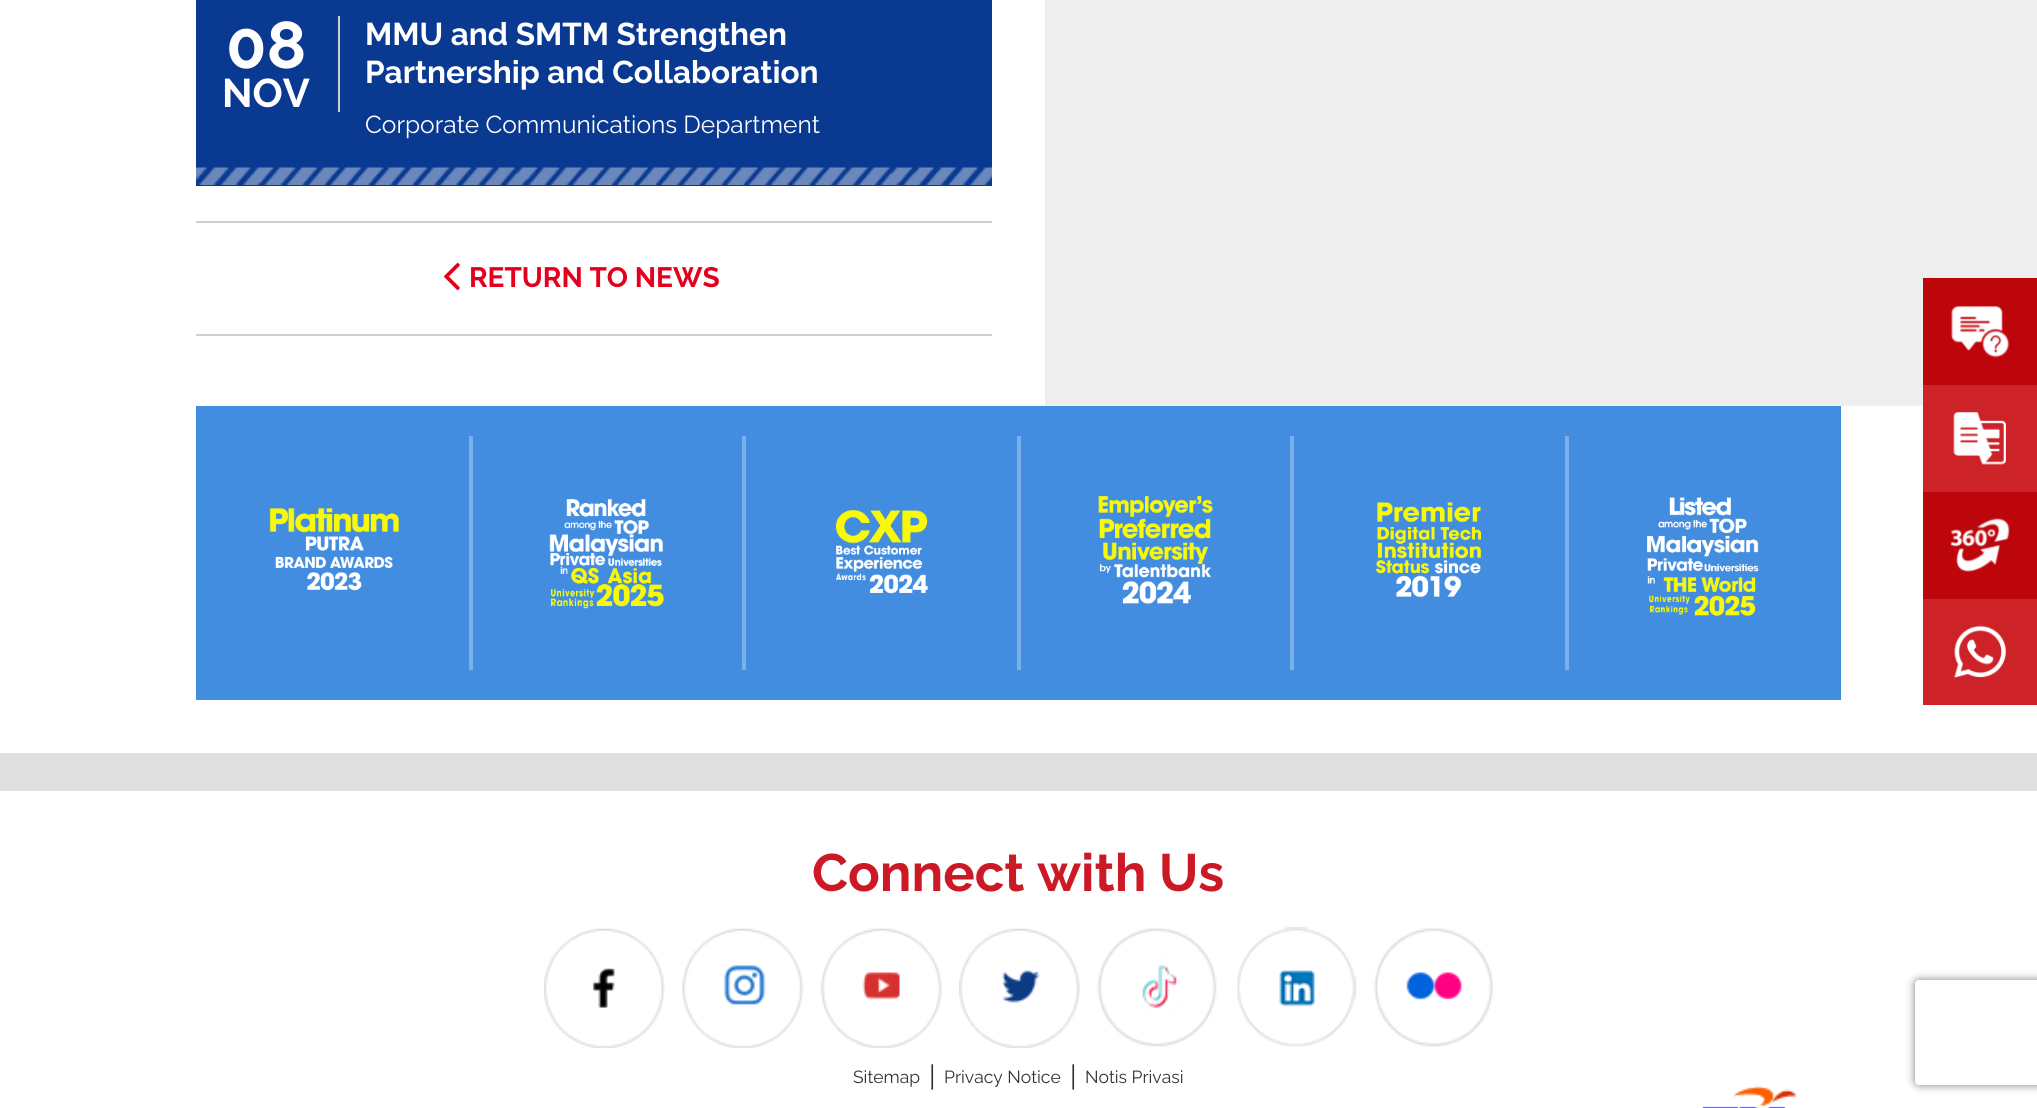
#include <cairo/cairo.h>
#include <math.h>
#include <stddef.h>


static void rounded_rect(cairo_t *cr, double x, double y, double w, double h, double r) {
  cairo_new_sub_path(cr);
  cairo_arc(cr, x + w - r, y + h - r, r, 0, M_PI / 2);
  cairo_arc(cr, x + r, y + h - r, r, M_PI / 2, M_PI);
  cairo_arc(cr, x + r, y + r, r, M_PI, 1.5 * M_PI);
  cairo_arc(cr, x + w - r, y + r, r, 1.5 * M_PI, 2 * M_PI);
  cairo_close_path(cr);
}

static void draw_shadow(cairo_t *cr, double x, double y, double w, double h, double r, double blur, double alpha) {
  cairo_push_group_with_content(cr, CAIRO_CONTENT_ALPHA);
  cairo_set_operator(cr, CAIRO_OPERATOR_SOURCE);
  for (int i = 15; i >= -15 && fmin(w, h) + blur * i / 3 > 0; i -= 2) {
    double e = blur * i / 6;
    cairo_set_source_rgba(cr, 0, 0, 0, alpha * erfc((i - 1) / 8.5) / 2);
    rounded_rect(cr, x - e, y - e, w + 2 * e, h + 2 * e, fmax(0, fmin(r + e + blur * .6, fmin(w, h) / 2 + e)));
    cairo_fill(cr);
  }
  cairo_pattern_t *soft = cairo_pop_group(cr);
  cairo_mask(cr, soft);
  cairo_pattern_destroy(soft);
}

static void draw_image(cairo_t *cr, const char *path, double x, double y, double w, double h) {
  cairo_surface_t *image = cairo_image_surface_create_from_png(path);
  cairo_save(cr);
  cairo_set_source_surface(cr, image, x, y);
  cairo_rectangle(cr, x, y, w, h);
  cairo_fill(cr);
  cairo_restore(cr);
  cairo_surface_destroy(image);
}

static void draw(cairo_t *cr) {
  cairo_set_source_rgb(cr, 1, 1, 1);
  cairo_paint(cr);
  cairo_set_source_rgb(cr, 9 / 255.0, 57 / 255.0, 144 / 255.0);
  cairo_rectangle(cr, 196, 0, 796, 186);
  cairo_fill(cr);
  draw_image(cr, "images/1.png", 196, 167, 796, 18);
  cairo_set_source_rgb(cr, 207 / 255.0, 207 / 255.0, 207 / 255.0);
  cairo_rectangle(cr, 338, 16, 2, 96);
  cairo_fill(cr);
  cairo_rectangle(cr, 196, 221, 796, 2);
  cairo_fill(cr);
  draw_image(cr, "images/2.png", 444, 262, 16, 29);
  cairo_rectangle(cr, 196, 334, 796, 2);
  cairo_fill(cr);
  cairo_set_source_rgb(cr, 238 / 255.0, 238 / 255.0, 238 / 255.0);
  cairo_rectangle(cr, 1045, 0, 992, 406);
  cairo_fill(cr);
  cairo_set_source_rgb(cr, 66 / 255.0, 141 / 255.0, 224 / 255.0);
  cairo_rectangle(cr, 196, 406, 1645, 294);
  cairo_fill(cr);
  draw_image(cr, "images/3.png", 269, 508, 130, 83);
  cairo_set_source_rgb(cr, 123 / 255.0, 175 / 255.0, 233 / 255.0);
  cairo_rectangle(cr, 469, 436, 4, 234);
  cairo_fill(cr);
  draw_image(cr, "images/4.png", 549, 499, 115, 110);
  cairo_rectangle(cr, 742, 436, 4, 234);
  cairo_fill(cr);
  draw_image(cr, "images/5.png", 836, 510, 92, 84);
  cairo_rectangle(cr, 1017, 436, 4, 234);
  cairo_fill(cr);
  draw_image(cr, "images/6.png", 1098, 496, 115, 108);
  cairo_rectangle(cr, 1290, 436, 4, 234);
  cairo_fill(cr);
  draw_image(cr, "images/7.png", 1376, 502, 105, 96);
  cairo_rectangle(cr, 1565, 436, 4, 234);
  cairo_fill(cr);
  draw_image(cr, "images/8.png", 1647, 497, 112, 119);
  cairo_set_source_rgb(cr, 189 / 255.0, 5 / 255.0, 12 / 255.0);
  cairo_rectangle(cr, 1923, 278, 114, 107);
  cairo_fill(cr);
  draw_image(cr, "images/9.png", 1951, 306, 59, 52);
  cairo_set_source_rgb(cr, 204 / 255.0, 34 / 255.0, 40 / 255.0);
  cairo_rectangle(cr, 1923, 385, 114, 107);
  cairo_fill(cr);
  draw_image(cr, "images/10.png", 1953, 412, 53, 53);
  cairo_set_source_rgb(cr, 189 / 255.0, 5 / 255.0, 12 / 255.0);
  cairo_rectangle(cr, 1923, 492, 114, 107);
  cairo_fill(cr);
  draw_image(cr, "images/11.png", 1950, 518, 60, 54);
  cairo_set_source_rgb(cr, 204 / 255.0, 34 / 255.0, 40 / 255.0);
  cairo_rectangle(cr, 1923, 599, 114, 106);
  cairo_fill(cr);
  draw_image(cr, "images/12.png", 1954, 625, 52, 53);
  cairo_set_source_rgb(cr, 224 / 255.0, 224 / 255.0, 224 / 255.0);
  cairo_rectangle(cr, 0, 753, 2037, 38);
  cairo_fill(cr);
  draw_image(cr, "images/13.png", 544, 928, 121, 120);
  draw_image(cr, "images/14.png", 682, 928, 122, 120);
  draw_image(cr, "images/15.png", 820, 928, 122, 120);
  draw_image(cr, "images/16.png", 959, 928, 121, 120);
  draw_image(cr, "images/17.png", 1097, 927, 120, 120);
  draw_image(cr, "images/18.png", 1237, 927, 120, 120);
  draw_image(cr, "images/19.png", 1374, 927, 120, 120);
  draw_image(cr, "images/20.png", 1702, 1086, 95, 22);
  cairo_save(cr);
  cairo_set_fill_rule(cr, CAIRO_FILL_RULE_EVEN_ODD);
  cairo_new_path(cr);
  cairo_move_to(cr, 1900, 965);
  cairo_line_to(cr, 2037, 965);
  cairo_line_to(cr, 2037, 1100);
  cairo_line_to(cr, 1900, 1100);
  cairo_close_path(cr);
  cairo_move_to(cr, 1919, 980);
  cairo_line_to(cr, 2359, 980);
  cairo_curve_to(cr, 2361, 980, 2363, 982, 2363, 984);
  cairo_line_to(cr, 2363, 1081);
  cairo_curve_to(cr, 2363, 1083, 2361, 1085, 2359, 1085);
  cairo_line_to(cr, 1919, 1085);
  cairo_curve_to(cr, 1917, 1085, 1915, 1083, 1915, 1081);
  cairo_line_to(cr, 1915, 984);
  cairo_curve_to(cr, 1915, 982, 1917, 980, 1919, 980);
  cairo_close_path(cr);
  cairo_clip(cr);
  cairo_set_source_rgb(cr, 128 / 255.0, 128 / 255.0, 128 / 255.0);
  draw_shadow(cr, 1915, 980, 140, 105, 4, 4.5, 1);
  cairo_restore(cr);
  cairo_select_font_face(cr, "Raleway", CAIRO_FONT_SLANT_NORMAL, CAIRO_FONT_WEIGHT_BOLD);
  cairo_set_font_size(cr, 66);
  cairo_set_source_rgb(cr, 1, 1, 1);
  cairo_move_to(cr, 226, 68);
  cairo_show_text(cr, "08");
  cairo_set_font_size(cr, 40);
  cairo_move_to(cr, 222, 107);
  cairo_show_text(cr, "NOV");
  cairo_set_font_size(cr, 31.5);
  cairo_move_to(cr, 365, 45);
  cairo_show_text(cr, "MMU and SMTM Strengthen");
  cairo_move_to(cr, 365, 83);
  cairo_show_text(cr, "Partnership and Collaboration");
  cairo_select_font_face(cr, "Raleway", CAIRO_FONT_SLANT_NORMAL, CAIRO_FONT_WEIGHT_NORMAL);
  cairo_set_font_size(cr, 24.5);
  cairo_move_to(cr, 365, 133);
  cairo_show_text(cr, "Corporate Communications Department");
  cairo_select_font_face(cr, "Raleway", CAIRO_FONT_SLANT_NORMAL, CAIRO_FONT_WEIGHT_BOLD);
  cairo_set_font_size(cr, 28);
  cairo_set_source_rgb(cr, 228 / 255.0, 0, 28 / 255.0);
  cairo_move_to(cr, 469, 287);
  cairo_show_text(cr, "RETURN TO NEWS");
  cairo_set_font_size(cr, 52.5);
  cairo_set_source_rgb(cr, 203 / 255.0, 26 / 255.0, 37 / 255.0);
  cairo_move_to(cr, 812, 891);
  cairo_show_text(cr, "Connect with Us");
  cairo_select_font_face(cr, "Raleway", CAIRO_FONT_SLANT_NORMAL, CAIRO_FONT_WEIGHT_NORMAL);
  cairo_set_font_size(cr, 17.5);
  cairo_set_source_rgb(cr, 51 / 255.0, 51 / 255.0, 51 / 255.0);
  cairo_move_to(cr, 853, 1083);
  cairo_show_text(cr, "Sitemap");
  cairo_set_font_size(cr, 28);
  cairo_move_to(cr, 929, 1086);
  cairo_show_text(cr, "|");
  cairo_set_font_size(cr, 17.5);
  cairo_move_to(cr, 944, 1083);
  cairo_show_text(cr, "Privacy Notice");
  cairo_set_font_size(cr, 28);
  cairo_move_to(cr, 1070, 1086);
  cairo_show_text(cr, "|");
  cairo_set_font_size(cr, 17.5);
  cairo_move_to(cr, 1085, 1083);
  cairo_show_text(cr, "Notis Privasi");
}

int main(void) {
  cairo_surface_t *surface = cairo_image_surface_create(CAIRO_FORMAT_RGB24, 2037, 1108);
  cairo_t *cr = cairo_create(surface);
  cairo_font_options_t *options = cairo_font_options_create();
  cairo_font_options_set_hint_metrics(options, CAIRO_HINT_METRICS_OFF);
  cairo_font_options_set_hint_style(options, CAIRO_HINT_STYLE_NONE);
  cairo_set_font_options(cr, options);
  cairo_set_miter_limit(cr, 4);
  draw(cr);
  cairo_surface_write_to_png(surface, "out.png");
  cairo_font_options_destroy(options);
  cairo_destroy(cr);
  cairo_surface_destroy(surface);
  return 0;
}
